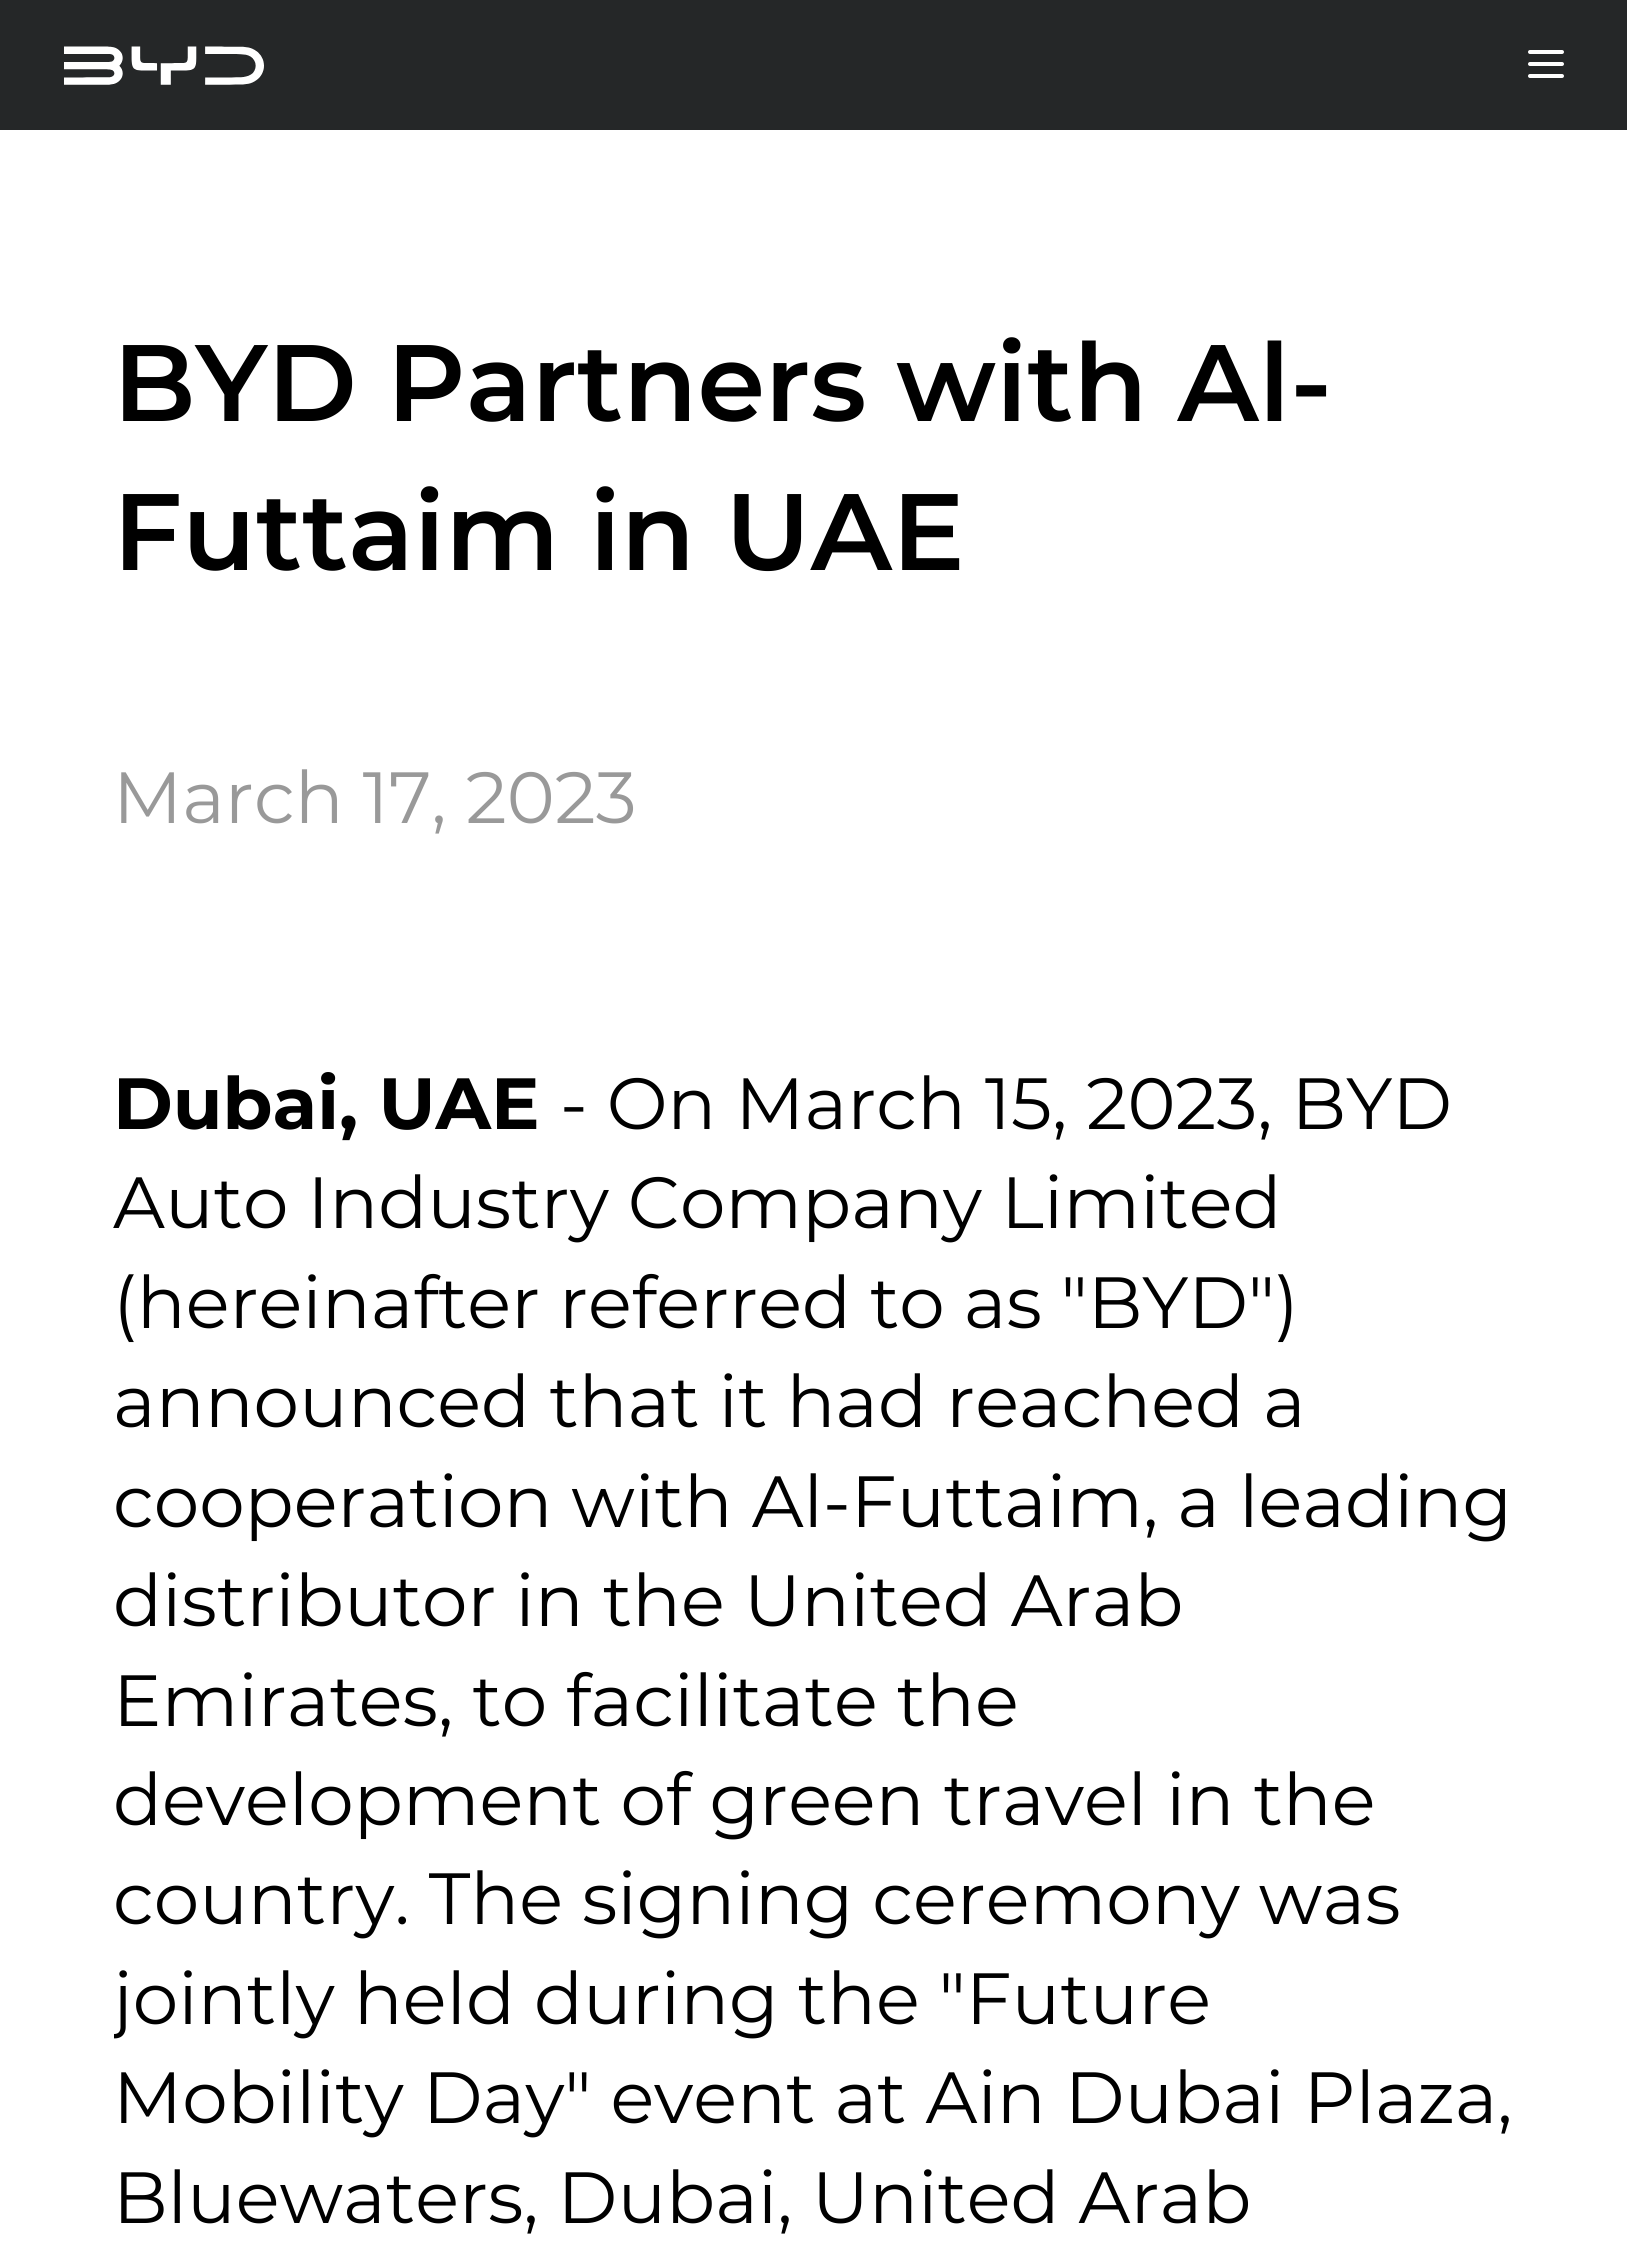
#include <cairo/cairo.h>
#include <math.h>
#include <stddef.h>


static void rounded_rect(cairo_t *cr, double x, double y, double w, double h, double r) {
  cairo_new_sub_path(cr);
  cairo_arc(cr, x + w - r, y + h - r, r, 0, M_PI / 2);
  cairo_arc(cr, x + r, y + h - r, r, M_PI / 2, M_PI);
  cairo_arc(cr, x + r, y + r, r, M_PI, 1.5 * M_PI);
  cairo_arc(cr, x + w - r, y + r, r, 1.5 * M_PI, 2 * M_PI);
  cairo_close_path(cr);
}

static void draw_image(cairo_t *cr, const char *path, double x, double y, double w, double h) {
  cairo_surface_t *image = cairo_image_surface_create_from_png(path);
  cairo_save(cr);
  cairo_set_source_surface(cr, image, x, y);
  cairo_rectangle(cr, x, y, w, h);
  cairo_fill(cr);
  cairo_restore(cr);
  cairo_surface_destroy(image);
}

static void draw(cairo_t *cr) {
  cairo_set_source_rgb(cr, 1, 1, 1);
  cairo_paint(cr);
  cairo_set_source_rgb(cr, 37 / 255.0, 39 / 255.0, 40 / 255.0);
  cairo_rectangle(cr, 0, 0, 1627, 130);
  cairo_fill(cr);
  draw_image(cr, "images/1.png", 64, 46, 200, 39);
  cairo_set_source_rgb(cr, 1, 1, 1);
  rounded_rect(cr, 1528, 50, 36, 4, 2);
  cairo_fill(cr);
  rounded_rect(cr, 1528, 62, 36, 4, 2);
  cairo_fill(cr);
  rounded_rect(cr, 1528, 74, 36, 4, 2);
  cairo_fill(cr);
  cairo_select_font_face(cr, "Montserrat SemiBold", CAIRO_FONT_SLANT_NORMAL, CAIRO_FONT_WEIGHT_NORMAL);
  cairo_set_font_size(cr, 108.5);
  cairo_set_source_rgb(cr, 0, 0, 0);
  cairo_move_to(cr, 113, 421);
  cairo_show_text(cr, "BYD Partners with Al-");
  cairo_move_to(cr, 113, 570);
  cairo_show_text(cr, "Futtaim in UAE");
  cairo_select_font_face(cr, "Montserrat", CAIRO_FONT_SLANT_NORMAL, CAIRO_FONT_WEIGHT_NORMAL);
  cairo_set_font_size(cr, 72.4);
  cairo_set_source_rgb(cr, 153 / 255.0, 153 / 255.0, 153 / 255.0);
  cairo_move_to(cr, 113, 823);
  cairo_show_text(cr, "March 17, 2023");
  cairo_select_font_face(cr, "Montserrat", CAIRO_FONT_SLANT_NORMAL, CAIRO_FONT_WEIGHT_BOLD);
  cairo_set_source_rgb(cr, 0, 0, 0);
  cairo_move_to(cr, 113, 1129);
  cairo_show_text(cr, "Dubai, UAE");
  cairo_select_font_face(cr, "Montserrat", CAIRO_FONT_SLANT_NORMAL, CAIRO_FONT_WEIGHT_NORMAL);
  cairo_move_to(cr, 560, 1129);
  cairo_show_text(cr, "- On March 15, 2023, BYD");
  cairo_move_to(cr, 113, 1228);
  cairo_show_text(cr, "Auto Industry Company Limited");
  cairo_move_to(cr, 113, 1328);
  cairo_show_text(cr, "(hereinafter referred to as \"BYD\")");
  cairo_move_to(cr, 113, 1427);
  cairo_show_text(cr, "announced that it had reached a");
  cairo_move_to(cr, 113, 1527);
  cairo_show_text(cr, "cooperation with Al-Futtaim, a leading");
  cairo_move_to(cr, 113, 1626);
  cairo_show_text(cr, "distributor in the United Arab");
  cairo_move_to(cr, 113, 1726);
  cairo_show_text(cr, "Emirates, to facilitate the");
  cairo_move_to(cr, 113, 1825);
  cairo_show_text(cr, "development of green travel in the");
  cairo_move_to(cr, 113, 1924);
  cairo_show_text(cr, "country. The signing ceremony was");
  cairo_save(cr);
  cairo_rectangle(cr, 114, 1054, 1400, 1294);
  cairo_clip(cr);
  cairo_move_to(cr, 113, 2024);
  cairo_show_text(cr, "jointly held during the \"Future");
  cairo_restore(cr);
  cairo_move_to(cr, 113, 2123);
  cairo_show_text(cr, "Mobility Day\" event at Ain Dubai Plaza,");
  cairo_move_to(cr, 113, 2223);
  cairo_show_text(cr, "Bluewaters, Dubai, United Arab");
}

int main(void) {
  cairo_surface_t *surface = cairo_image_surface_create(CAIRO_FORMAT_RGB24, 1627, 2257);
  cairo_t *cr = cairo_create(surface);
  cairo_font_options_t *options = cairo_font_options_create();
  cairo_font_options_set_hint_metrics(options, CAIRO_HINT_METRICS_OFF);
  cairo_font_options_set_hint_style(options, CAIRO_HINT_STYLE_NONE);
  cairo_set_font_options(cr, options);
  cairo_set_miter_limit(cr, 4);
  draw(cr);
  cairo_surface_write_to_png(surface, "out.png");
  cairo_font_options_destroy(options);
  cairo_destroy(cr);
  cairo_surface_destroy(surface);
  return 0;
}
